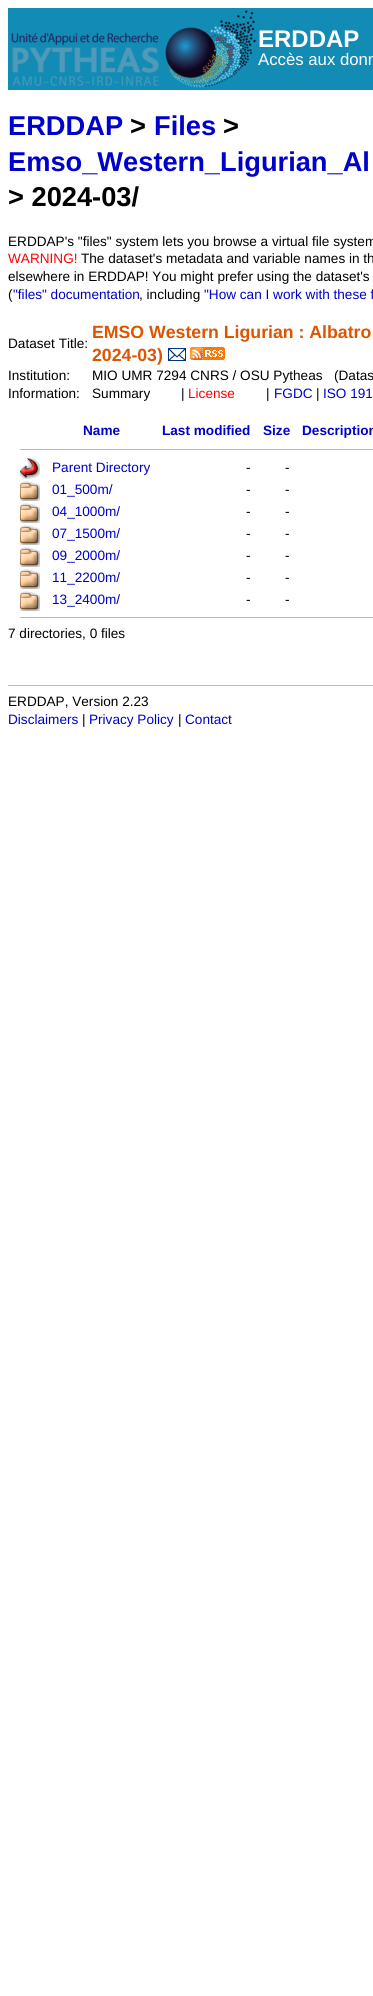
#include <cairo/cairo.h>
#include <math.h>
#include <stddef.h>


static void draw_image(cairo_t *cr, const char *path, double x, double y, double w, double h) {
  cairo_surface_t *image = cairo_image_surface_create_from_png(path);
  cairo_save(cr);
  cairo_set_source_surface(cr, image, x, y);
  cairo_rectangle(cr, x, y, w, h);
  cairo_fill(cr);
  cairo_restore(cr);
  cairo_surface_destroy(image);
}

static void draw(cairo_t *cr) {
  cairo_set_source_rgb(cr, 1, 1, 1);
  cairo_paint(cr);
  cairo_set_source_rgb(cr, 18 / 255.0, 140 / 255.0, 181 / 255.0);
  cairo_rectangle(cr, 8, 8, 365, 82);
  cairo_fill(cr);
  draw_image(cr, "images/1.png", 11, 10, 245, 78);
  draw_image(cr, "images/2.png", 168, 348, 18, 13);
  draw_image(cr, "images/3.png", 190, 347, 35, 13);
  cairo_set_source_rgb(cr, 187 / 255.0, 187 / 255.0, 187 / 255.0);
  cairo_rectangle(cr, 20, 449, 353, 1);
  cairo_fill(cr);
  draw_image(cr, "images/4.png", 20, 458, 20, 21);
  draw_image(cr, "images/5.png", 20, 481, 20, 20);
  draw_image(cr, "images/5.png", 20, 503, 20, 20);
  draw_image(cr, "images/5.png", 20, 525, 20, 20);
  draw_image(cr, "images/5.png", 20, 547, 20, 20);
  draw_image(cr, "images/5.png", 20, 569, 20, 20);
  draw_image(cr, "images/5.png", 20, 591, 20, 20);
  cairo_rectangle(cr, 20, 617, 353, 1);
  cairo_fill(cr);
  cairo_rectangle(cr, 8, 685, 365, 1);
  cairo_fill(cr);
  cairo_select_font_face(cr, "Liberation Sans", CAIRO_FONT_SLANT_NORMAL, CAIRO_FONT_WEIGHT_BOLD);
  cairo_set_font_size(cr, 24);
  cairo_set_source_rgb(cr, 1, 1, 1);
  cairo_move_to(cr, 258, 47);
  cairo_show_text(cr, "ERDDAP");
  cairo_select_font_face(cr, "Liberation Sans", CAIRO_FONT_SLANT_NORMAL, CAIRO_FONT_WEIGHT_NORMAL);
  cairo_set_font_size(cr, 16.75);
  cairo_move_to(cr, 258, 65);
  cairo_show_text(cr, "Accès aux donn");
  cairo_select_font_face(cr, "Liberation Sans", CAIRO_FONT_SLANT_NORMAL, CAIRO_FONT_WEIGHT_BOLD);
  cairo_set_font_size(cr, 27.25);
  cairo_set_source_rgb(cr, 0, 0, 204 / 255.0);
  cairo_move_to(cr, 8, 135);
  cairo_show_text(cr, "ERDDAP");
  cairo_set_source_rgb(cr, 0, 0, 0);
  cairo_move_to(cr, 130, 135);
  cairo_show_text(cr, ">");
  cairo_set_source_rgb(cr, 0, 0, 204 / 255.0);
  cairo_move_to(cr, 154, 135);
  cairo_show_text(cr, "Files");
  cairo_set_source_rgb(cr, 0, 0, 0);
  cairo_move_to(cr, 223, 135);
  cairo_show_text(cr, ">");
  cairo_set_source_rgb(cr, 0, 0, 204 / 255.0);
  cairo_move_to(cr, 8, 171);
  cairo_show_text(cr, "Emso_Western_Ligurian_Al");
  cairo_set_source_rgb(cr, 0, 0, 0);
  cairo_move_to(cr, 8, 206);
  cairo_show_text(cr, "> 2024-03/");
  cairo_select_font_face(cr, "Liberation Sans", CAIRO_FONT_SLANT_NORMAL, CAIRO_FONT_WEIGHT_NORMAL);
  cairo_set_font_size(cr, 13.6);
  cairo_move_to(cr, 8, 246);
  cairo_show_text(cr, "ERDDAP's \"files\" system lets you browse a virtual file system");
  cairo_set_source_rgb(cr, 1, 0, 0);
  cairo_move_to(cr, 8, 263);
  cairo_show_text(cr, "WARNING!");
  cairo_set_source_rgb(cr, 0, 0, 0);
  cairo_move_to(cr, 81, 263);
  cairo_show_text(cr, "The dataset's metadata and variable names in th");
  cairo_move_to(cr, 8, 281);
  cairo_show_text(cr, "elsewhere in ERDDAP! You might prefer using the dataset's");
  cairo_move_to(cr, 8, 299);
  cairo_show_text(cr, "(");
  cairo_set_source_rgb(cr, 0, 0, 204 / 255.0);
  cairo_move_to(cr, 13, 299);
  cairo_show_text(cr, "\"files\" documentation");
  cairo_set_source_rgb(cr, 0, 0, 0);
  cairo_move_to(cr, 139, 299);
  cairo_show_text(cr, ", including");
  cairo_set_source_rgb(cr, 0, 0, 204 / 255.0);
  cairo_move_to(cr, 204, 299);
  cairo_show_text(cr, "\"How can I work with these f");
  cairo_set_source_rgb(cr, 0, 0, 0);
  cairo_move_to(cr, 8, 348);
  cairo_show_text(cr, "Dataset Title:");
  cairo_select_font_face(cr, "Liberation Sans", CAIRO_FONT_SLANT_NORMAL, CAIRO_FONT_WEIGHT_BOLD);
  cairo_set_font_size(cr, 17.7);
  cairo_set_source_rgb(cr, 221 / 255.0, 85 / 255.0, 0);
  cairo_move_to(cr, 92, 338);
  cairo_show_text(cr, "EMSO Western Ligurian : Albatro");
  cairo_move_to(cr, 92, 361);
  cairo_show_text(cr, "2024-03)");
  cairo_select_font_face(cr, "Liberation Sans", CAIRO_FONT_SLANT_NORMAL, CAIRO_FONT_WEIGHT_NORMAL);
  cairo_set_font_size(cr, 13.6);
  cairo_set_source_rgb(cr, 0, 0, 0);
  cairo_move_to(cr, 8, 380);
  cairo_show_text(cr, "Institution:");
  cairo_move_to(cr, 92, 380);
  cairo_show_text(cr, "MIO UMR 7294 CNRS / OSU Pytheas");
  cairo_move_to(cr, 334, 380);
  cairo_show_text(cr, "(Datas");
  cairo_move_to(cr, 8, 398);
  cairo_show_text(cr, "Information:");
  cairo_move_to(cr, 92, 398);
  cairo_show_text(cr, "Summary");
  cairo_move_to(cr, 181, 398);
  cairo_show_text(cr, "|");
  cairo_set_source_rgb(cr, 1, 0, 0);
  cairo_move_to(cr, 188, 398);
  cairo_show_text(cr, "License");
  cairo_set_source_rgb(cr, 0, 0, 0);
  cairo_move_to(cr, 266, 398);
  cairo_show_text(cr, "|");
  cairo_set_source_rgb(cr, 0, 0, 204 / 255.0);
  cairo_move_to(cr, 274, 398);
  cairo_show_text(cr, "FGDC");
  cairo_set_source_rgb(cr, 0, 0, 0);
  cairo_move_to(cr, 316, 398);
  cairo_show_text(cr, "|");
  cairo_set_source_rgb(cr, 0, 0, 204 / 255.0);
  cairo_move_to(cr, 323, 398);
  cairo_show_text(cr, "ISO 191");
  cairo_select_font_face(cr, "Liberation Sans", CAIRO_FONT_SLANT_NORMAL, CAIRO_FONT_WEIGHT_BOLD);
  cairo_move_to(cr, 83, 435);
  cairo_show_text(cr, "Name");
  cairo_move_to(cr, 162, 435);
  cairo_show_text(cr, "Last modified");
  cairo_move_to(cr, 263, 435);
  cairo_show_text(cr, "Size");
  cairo_move_to(cr, 302, 435);
  cairo_show_text(cr, "Description");
  cairo_select_font_face(cr, "Liberation Sans", CAIRO_FONT_SLANT_NORMAL, CAIRO_FONT_WEIGHT_NORMAL);
  cairo_move_to(cr, 52, 472);
  cairo_show_text(cr, "Parent Directory");
  cairo_set_source_rgb(cr, 0, 0, 0);
  cairo_move_to(cr, 246, 472);
  cairo_show_text(cr, "-");
  cairo_move_to(cr, 285, 472);
  cairo_show_text(cr, "-");
  cairo_set_source_rgb(cr, 0, 0, 204 / 255.0);
  cairo_move_to(cr, 52, 494);
  cairo_show_text(cr, "01_500m/");
  cairo_set_source_rgb(cr, 0, 0, 0);
  cairo_move_to(cr, 246, 494);
  cairo_show_text(cr, "-");
  cairo_move_to(cr, 285, 494);
  cairo_show_text(cr, "-");
  cairo_set_source_rgb(cr, 0, 0, 204 / 255.0);
  cairo_move_to(cr, 52, 516);
  cairo_show_text(cr, "04_1000m/");
  cairo_set_source_rgb(cr, 0, 0, 0);
  cairo_move_to(cr, 246, 516);
  cairo_show_text(cr, "-");
  cairo_move_to(cr, 285, 516);
  cairo_show_text(cr, "-");
  cairo_set_source_rgb(cr, 0, 0, 204 / 255.0);
  cairo_move_to(cr, 52, 538);
  cairo_show_text(cr, "07_1500m/");
  cairo_set_source_rgb(cr, 0, 0, 0);
  cairo_move_to(cr, 246, 538);
  cairo_show_text(cr, "-");
  cairo_move_to(cr, 285, 538);
  cairo_show_text(cr, "-");
  cairo_set_source_rgb(cr, 0, 0, 204 / 255.0);
  cairo_move_to(cr, 52, 560);
  cairo_show_text(cr, "09_2000m/");
  cairo_set_source_rgb(cr, 0, 0, 0);
  cairo_move_to(cr, 246, 560);
  cairo_show_text(cr, "-");
  cairo_move_to(cr, 285, 560);
  cairo_show_text(cr, "-");
  cairo_set_source_rgb(cr, 0, 0, 204 / 255.0);
  cairo_move_to(cr, 52, 582);
  cairo_show_text(cr, "11_2200m/");
  cairo_set_source_rgb(cr, 0, 0, 0);
  cairo_move_to(cr, 246, 582);
  cairo_show_text(cr, "-");
  cairo_move_to(cr, 285, 582);
  cairo_show_text(cr, "-");
  cairo_set_source_rgb(cr, 0, 0, 204 / 255.0);
  cairo_move_to(cr, 52, 604);
  cairo_show_text(cr, "13_2400m/");
  cairo_set_source_rgb(cr, 0, 0, 0);
  cairo_move_to(cr, 246, 604);
  cairo_show_text(cr, "-");
  cairo_move_to(cr, 285, 604);
  cairo_show_text(cr, "-");
  cairo_move_to(cr, 8, 638);
  cairo_show_text(cr, "7 directories, 0 files");
  cairo_move_to(cr, 8, 706);
  cairo_show_text(cr, "ERDDAP, Version 2.23");
  cairo_set_source_rgb(cr, 0, 0, 204 / 255.0);
  cairo_move_to(cr, 8, 724);
  cairo_show_text(cr, "Disclaimers");
  cairo_set_source_rgb(cr, 0, 0, 0);
  cairo_move_to(cr, 82, 724);
  cairo_show_text(cr, "|");
  cairo_set_source_rgb(cr, 0, 0, 204 / 255.0);
  cairo_move_to(cr, 89, 724);
  cairo_show_text(cr, "Privacy Policy");
  cairo_set_source_rgb(cr, 0, 0, 0);
  cairo_move_to(cr, 178, 724);
  cairo_show_text(cr, "|");
  cairo_set_source_rgb(cr, 0, 0, 204 / 255.0);
  cairo_move_to(cr, 185, 724);
  cairo_show_text(cr, "Contact");
}

int main(void) {
  cairo_surface_t *surface = cairo_image_surface_create(CAIRO_FORMAT_RGB24, 373, 1996);
  cairo_t *cr = cairo_create(surface);
  cairo_font_options_t *options = cairo_font_options_create();
  cairo_font_options_set_hint_metrics(options, CAIRO_HINT_METRICS_OFF);
  cairo_font_options_set_hint_style(options, CAIRO_HINT_STYLE_NONE);
  cairo_set_font_options(cr, options);
  cairo_set_miter_limit(cr, 4);
  draw(cr);
  cairo_surface_write_to_png(surface, "out.png");
  cairo_font_options_destroy(options);
  cairo_destroy(cr);
  cairo_surface_destroy(surface);
  return 0;
}
